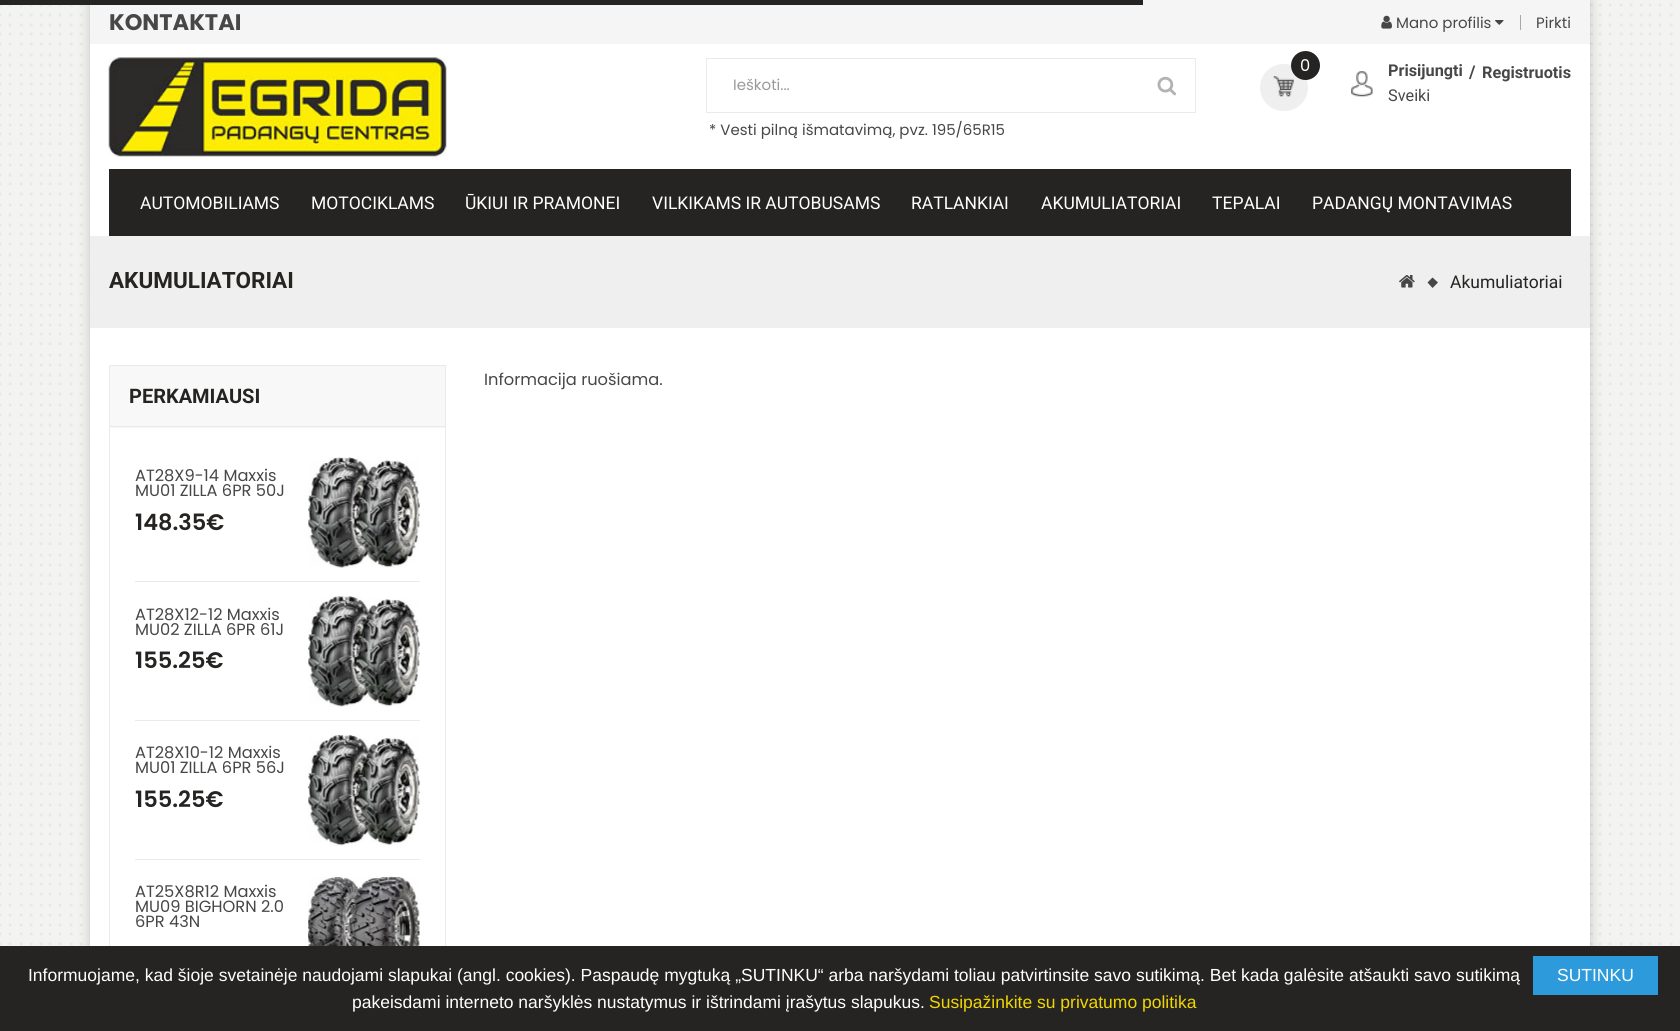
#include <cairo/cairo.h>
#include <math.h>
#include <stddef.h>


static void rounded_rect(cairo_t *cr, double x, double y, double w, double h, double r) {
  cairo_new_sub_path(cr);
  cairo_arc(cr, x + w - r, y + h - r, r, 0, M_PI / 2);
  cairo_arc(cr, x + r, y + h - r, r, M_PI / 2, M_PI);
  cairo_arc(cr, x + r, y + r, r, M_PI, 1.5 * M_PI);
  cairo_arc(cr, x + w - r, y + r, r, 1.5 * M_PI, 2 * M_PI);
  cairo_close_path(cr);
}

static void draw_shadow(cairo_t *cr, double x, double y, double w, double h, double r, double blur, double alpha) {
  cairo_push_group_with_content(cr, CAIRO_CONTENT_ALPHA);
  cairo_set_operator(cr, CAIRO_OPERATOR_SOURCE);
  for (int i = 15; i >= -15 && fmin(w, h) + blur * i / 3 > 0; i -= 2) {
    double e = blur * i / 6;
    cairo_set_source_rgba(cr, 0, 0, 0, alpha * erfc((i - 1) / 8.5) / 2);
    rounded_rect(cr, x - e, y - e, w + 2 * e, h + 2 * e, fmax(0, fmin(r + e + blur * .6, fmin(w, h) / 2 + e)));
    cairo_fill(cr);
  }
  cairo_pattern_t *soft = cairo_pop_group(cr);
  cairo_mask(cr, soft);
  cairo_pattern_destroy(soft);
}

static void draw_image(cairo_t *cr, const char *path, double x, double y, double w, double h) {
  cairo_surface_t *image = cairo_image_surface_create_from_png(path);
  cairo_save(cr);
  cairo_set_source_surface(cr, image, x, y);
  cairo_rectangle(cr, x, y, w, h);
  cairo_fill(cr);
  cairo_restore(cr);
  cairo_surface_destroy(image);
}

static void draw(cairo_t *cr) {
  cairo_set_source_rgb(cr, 1, 1, 1);
  cairo_paint(cr);
  draw_image(cr, "images/1.png", 0, 0, 1680, 946);
  cairo_set_source_rgb(cr, 0, 0, 0);
  draw_shadow(cr, 90, 0, 1500, 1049, 0, 6, 0.2);
  cairo_set_source_rgb(cr, 1, 1, 1);
  cairo_rectangle(cr, 90, 44, 1500, 902);
  cairo_fill(cr);
  cairo_set_source_rgb(cr, 245 / 255.0, 245 / 255.0, 245 / 255.0);
  cairo_rectangle(cr, 90, 0, 1500, 44);
  cairo_fill(cr);
  cairo_set_source_rgb(cr, 37 / 255.0, 36 / 255.0, 34 / 255.0);
  cairo_rectangle(cr, 0, 0, 1143, 5);
  cairo_fill(cr);
  draw_image(cr, "images/2.png", 1381, 15, 11, 14);
  draw_image(cr, "images/3.png", 1495, 20, 9, 5);
  cairo_set_source_rgb(cr, 168 / 255.0, 168 / 255.0, 168 / 255.0);
  cairo_rectangle(cr, 1520, 15, 1, 15);
  cairo_fill(cr);
  draw_image(cr, "images/4.png", 108, 57, 339, 100);
  cairo_rectangle(cr, 706.5, 58.5, 489, 54);
  cairo_set_source_rgb(cr, 234 / 255.0, 234 / 255.0, 234 / 255.0);
  cairo_set_line_width(cr, 1);
  cairo_stroke(cr);
  draw_image(cr, "images/5.png", 1157, 76, 19, 20);
  cairo_set_source_rgb(cr, 239 / 255.0, 239 / 255.0, 239 / 255.0);
  rounded_rect(cr, 1260, 64, 48, 47, 23.5);
  cairo_fill(cr);
  draw_image(cr, "images/6.png", 1273, 76, 21, 21);
  cairo_set_source_rgb(cr, 37 / 255.0, 36 / 255.0, 34 / 255.0);
  cairo_arc(cr, 1305.5, 65.5, 14.5, 0, 2 * M_PI);
  cairo_fill(cr);
  draw_image(cr, "images/7.png", 1351, 71, 22, 26);
  cairo_rectangle(cr, 109, 169, 1462, 67);
  cairo_fill(cr);
  cairo_set_source_rgb(cr, 239 / 255.0, 239 / 255.0, 239 / 255.0);
  cairo_rectangle(cr, 90, 236, 1500, 92);
  cairo_fill(cr);
  draw_image(cr, "images/8.png", 1399, 275, 16, 13);
  cairo_set_source_rgb(cr, 70 / 255.0, 70 / 255.0, 70 / 255.0);
  cairo_new_path(cr);
  cairo_move_to(cr, 1432.5, 277.5);
  cairo_line_to(cr, 1438, 282.5);
  cairo_line_to(cr, 1432.5, 288);
  cairo_line_to(cr, 1427.5, 282.5);
  cairo_close_path(cr);
  cairo_fill(cr);
  cairo_rectangle(cr, 109.5, 365.5, 336, 662);
  cairo_set_source_rgb(cr, 234 / 255.0, 234 / 255.0, 234 / 255.0);
  cairo_stroke(cr);
  cairo_set_source_rgb(cr, 248 / 255.0, 248 / 255.0, 248 / 255.0);
  cairo_rectangle(cr, 110, 366, 335, 62);
  cairo_fill(cr);
  cairo_set_source_rgb(cr, 234 / 255.0, 234 / 255.0, 234 / 255.0);
  cairo_rectangle(cr, 110, 426, 335, 1);
  cairo_fill(cr);
  cairo_rectangle(cr, 135, 581, 285, 1);
  cairo_fill(cr);
  draw_image(cr, "images/9.png", 308, 457, 112, 111);
  cairo_rectangle(cr, 135, 720, 285, 1);
  cairo_fill(cr);
  draw_image(cr, "images/10.png", 308, 596, 112, 111);
  cairo_rectangle(cr, 135, 859, 285, 1);
  cairo_fill(cr);
  draw_image(cr, "images/11.png", 308, 734, 112, 112);
  draw_image(cr, "images/12.png", 308, 876, 112, 70);
  cairo_set_source_rgb(cr, 37 / 255.0, 36 / 255.0, 34 / 255.0);
  cairo_rectangle(cr, 0, 946, 1680, 85);
  cairo_fill(cr);
  cairo_set_source_rgb(cr, 45 / 255.0, 155 / 255.0, 219 / 255.0);
  cairo_rectangle(cr, 1533, 956, 125, 39);
  cairo_fill(cr);
  cairo_select_font_face(cr, "Poppins", CAIRO_FONT_SLANT_NORMAL, CAIRO_FONT_WEIGHT_BOLD);
  cairo_set_font_size(cr, 22.5);
  cairo_set_source_rgb(cr, 71 / 255.0, 71 / 255.0, 71 / 255.0);
  cairo_move_to(cr, 109, 30);
  cairo_show_text(cr, "KONTAKTAI");
  cairo_select_font_face(cr, "Poppins", CAIRO_FONT_SLANT_NORMAL, CAIRO_FONT_WEIGHT_NORMAL);
  cairo_set_font_size(cr, 15);
  cairo_move_to(cr, 1396, 28);
  cairo_show_text(cr, "Mano profilis");
  cairo_move_to(cr, 1536, 28);
  cairo_show_text(cr, "Pirkti");
  cairo_set_source_rgb(cr, 153 / 255.0, 153 / 255.0, 153 / 255.0);
  cairo_move_to(cr, 733, 90);
  cairo_show_text(cr, "Ieškoti...");
  cairo_set_source_rgb(cr, 71 / 255.0, 71 / 255.0, 71 / 255.0);
  cairo_move_to(cr, 709, 135);
  cairo_show_text(cr, "* Vesti pilną išmatavimą, pvz. 195/65R15");
  cairo_set_font_size(cr, 16.25);
  cairo_set_source_rgb(cr, 1, 1, 1);
  cairo_move_to(cr, 1300, 71);
  cairo_show_text(cr, "0");
  cairo_select_font_face(cr, "Roboto", CAIRO_FONT_SLANT_NORMAL, CAIRO_FONT_WEIGHT_BOLD);
  cairo_set_source_rgb(cr, 71 / 255.0, 71 / 255.0, 71 / 255.0);
  cairo_move_to(cr, 1388, 76);
  cairo_show_text(cr, "Prisijungti");
  cairo_set_font_size(cr, 17.5);
  cairo_move_to(cr, 1469, 78);
  cairo_show_text(cr, "/");
  cairo_set_font_size(cr, 16.25);
  cairo_move_to(cr, 1482, 78);
  cairo_show_text(cr, "Registruotis");
  cairo_select_font_face(cr, "Roboto", CAIRO_FONT_SLANT_NORMAL, CAIRO_FONT_WEIGHT_NORMAL);
  cairo_move_to(cr, 1388, 101);
  cairo_show_text(cr, "Sveiki");
  cairo_set_font_size(cr, 17.5);
  cairo_set_source_rgb(cr, 1, 1, 1);
  cairo_move_to(cr, 140, 209);
  cairo_show_text(cr, "AUTOMOBILIAMS");
  cairo_move_to(cr, 311, 209);
  cairo_show_text(cr, "MOTOCIKLAMS");
  cairo_move_to(cr, 465, 209);
  cairo_show_text(cr, "ŪKIUI IR PRAMONEI");
  cairo_move_to(cr, 652, 209);
  cairo_show_text(cr, "VILKIKAMS IR AUTOBUSAMS");
  cairo_move_to(cr, 911, 209);
  cairo_show_text(cr, "RATLANKIAI");
  cairo_move_to(cr, 1041, 209);
  cairo_show_text(cr, "AKUMULIATORIAI");
  cairo_move_to(cr, 1212, 209);
  cairo_show_text(cr, "TEPALAI");
  cairo_move_to(cr, 1312, 209);
  cairo_show_text(cr, "PADANGŲ MONTAVIMAS");
  cairo_select_font_face(cr, "Roboto", CAIRO_FONT_SLANT_NORMAL, CAIRO_FONT_WEIGHT_BOLD);
  cairo_set_font_size(cr, 22.5);
  cairo_set_source_rgb(cr, 37 / 255.0, 36 / 255.0, 34 / 255.0);
  cairo_move_to(cr, 109, 288);
  cairo_show_text(cr, "AKUMULIATORIAI");
  cairo_select_font_face(cr, "Roboto", CAIRO_FONT_SLANT_NORMAL, CAIRO_FONT_WEIGHT_NORMAL);
  cairo_set_font_size(cr, 17.5);
  cairo_move_to(cr, 1450, 288);
  cairo_show_text(cr, "Akumuliatoriai");
  cairo_select_font_face(cr, "Poppins", CAIRO_FONT_SLANT_NORMAL, CAIRO_FONT_WEIGHT_NORMAL);
  cairo_set_font_size(cr, 16.25);
  cairo_set_source_rgb(cr, 71 / 255.0, 71 / 255.0, 71 / 255.0);
  cairo_move_to(cr, 484, 385);
  cairo_show_text(cr, "Informacija ruošiama.");
  cairo_select_font_face(cr, "Roboto", CAIRO_FONT_SLANT_NORMAL, CAIRO_FONT_WEIGHT_BOLD);
  cairo_set_font_size(cr, 20);
  cairo_set_source_rgb(cr, 37 / 255.0, 36 / 255.0, 34 / 255.0);
  cairo_move_to(cr, 129, 403);
  cairo_show_text(cr, "PERKAMIAUSI");
  cairo_select_font_face(cr, "Poppins", CAIRO_FONT_SLANT_NORMAL, CAIRO_FONT_WEIGHT_NORMAL);
  cairo_set_font_size(cr, 16.25);
  cairo_set_source_rgb(cr, 71 / 255.0, 71 / 255.0, 71 / 255.0);
  cairo_move_to(cr, 135, 481);
  cairo_show_text(cr, "AT28X9-14 Maxxis");
  cairo_move_to(cr, 135, 496);
  cairo_show_text(cr, "MU01 ZILLA 6PR 50J");
  cairo_select_font_face(cr, "Poppins SemiBold", CAIRO_FONT_SLANT_NORMAL, CAIRO_FONT_WEIGHT_NORMAL);
  cairo_set_font_size(cr, 22.5);
  cairo_set_source_rgb(cr, 37 / 255.0, 36 / 255.0, 34 / 255.0);
  cairo_move_to(cr, 135, 530);
  cairo_show_text(cr, "148.35€");
  cairo_select_font_face(cr, "Poppins", CAIRO_FONT_SLANT_NORMAL, CAIRO_FONT_WEIGHT_NORMAL);
  cairo_set_font_size(cr, 16.25);
  cairo_set_source_rgb(cr, 71 / 255.0, 71 / 255.0, 71 / 255.0);
  cairo_move_to(cr, 135, 620);
  cairo_show_text(cr, "AT28X12-12 Maxxis");
  cairo_move_to(cr, 135, 635);
  cairo_show_text(cr, "MU02 ZILLA 6PR 61J");
  cairo_select_font_face(cr, "Poppins SemiBold", CAIRO_FONT_SLANT_NORMAL, CAIRO_FONT_WEIGHT_NORMAL);
  cairo_set_font_size(cr, 22.5);
  cairo_set_source_rgb(cr, 37 / 255.0, 36 / 255.0, 34 / 255.0);
  cairo_move_to(cr, 135, 668);
  cairo_show_text(cr, "155.25€");
  cairo_select_font_face(cr, "Poppins", CAIRO_FONT_SLANT_NORMAL, CAIRO_FONT_WEIGHT_NORMAL);
  cairo_set_font_size(cr, 16.25);
  cairo_set_source_rgb(cr, 71 / 255.0, 71 / 255.0, 71 / 255.0);
  cairo_move_to(cr, 135, 758);
  cairo_show_text(cr, "AT28X10-12 Maxxis");
  cairo_move_to(cr, 135, 773);
  cairo_show_text(cr, "MU01 ZILLA 6PR 56J");
  cairo_select_font_face(cr, "Poppins SemiBold", CAIRO_FONT_SLANT_NORMAL, CAIRO_FONT_WEIGHT_NORMAL);
  cairo_set_font_size(cr, 22.5);
  cairo_set_source_rgb(cr, 37 / 255.0, 36 / 255.0, 34 / 255.0);
  cairo_move_to(cr, 135, 807);
  cairo_show_text(cr, "155.25€");
  cairo_select_font_face(cr, "Poppins", CAIRO_FONT_SLANT_NORMAL, CAIRO_FONT_WEIGHT_NORMAL);
  cairo_set_font_size(cr, 16.25);
  cairo_set_source_rgb(cr, 71 / 255.0, 71 / 255.0, 71 / 255.0);
  cairo_move_to(cr, 135, 897);
  cairo_show_text(cr, "AT25X8R12 Maxxis");
  cairo_move_to(cr, 135, 912);
  cairo_show_text(cr, "MU09 BIGHORN 2.0");
  cairo_move_to(cr, 135, 927);
  cairo_show_text(cr, "6PR 43N");
  cairo_select_font_face(cr, "Liberation Sans", CAIRO_FONT_SLANT_NORMAL, CAIRO_FONT_WEIGHT_NORMAL);
  cairo_set_font_size(cr, 17.5);
  cairo_set_source_rgb(cr, 1, 1, 1);
  cairo_move_to(cr, 28, 981);
  cairo_show_text(cr, "Informuojame, kad šioje svetainėje naudojami slapukai (angl. cookies). Paspaudę mygtuką „SUTINKU“ arba naršydami toliau patvirtinsite savo sutikimą. Bet kada galėsite atšaukti savo sutikimą");
  cairo_move_to(cr, 352, 1008);
  cairo_show_text(cr, "pakeisdami interneto naršyklės nustatymus ir ištrindami įrašytus slapukus.");
  cairo_set_source_rgb(cr, 241 / 255.0, 214 / 255.0, 0);
  cairo_move_to(cr, 929, 1008);
  cairo_show_text(cr, "Susipažinkite su privatumo politika");
  cairo_set_source_rgb(cr, 1, 1, 1);
  cairo_move_to(cr, 1557, 981);
  cairo_show_text(cr, "SUTINKU");
}

int main(void) {
  cairo_surface_t *surface = cairo_image_surface_create(CAIRO_FORMAT_RGB24, 1680, 1031);
  cairo_t *cr = cairo_create(surface);
  cairo_font_options_t *options = cairo_font_options_create();
  cairo_font_options_set_hint_metrics(options, CAIRO_HINT_METRICS_OFF);
  cairo_font_options_set_hint_style(options, CAIRO_HINT_STYLE_NONE);
  cairo_set_font_options(cr, options);
  cairo_set_miter_limit(cr, 4);
  draw(cr);
  cairo_surface_write_to_png(surface, "out.png");
  cairo_font_options_destroy(options);
  cairo_destroy(cr);
  cairo_surface_destroy(surface);
  return 0;
}
